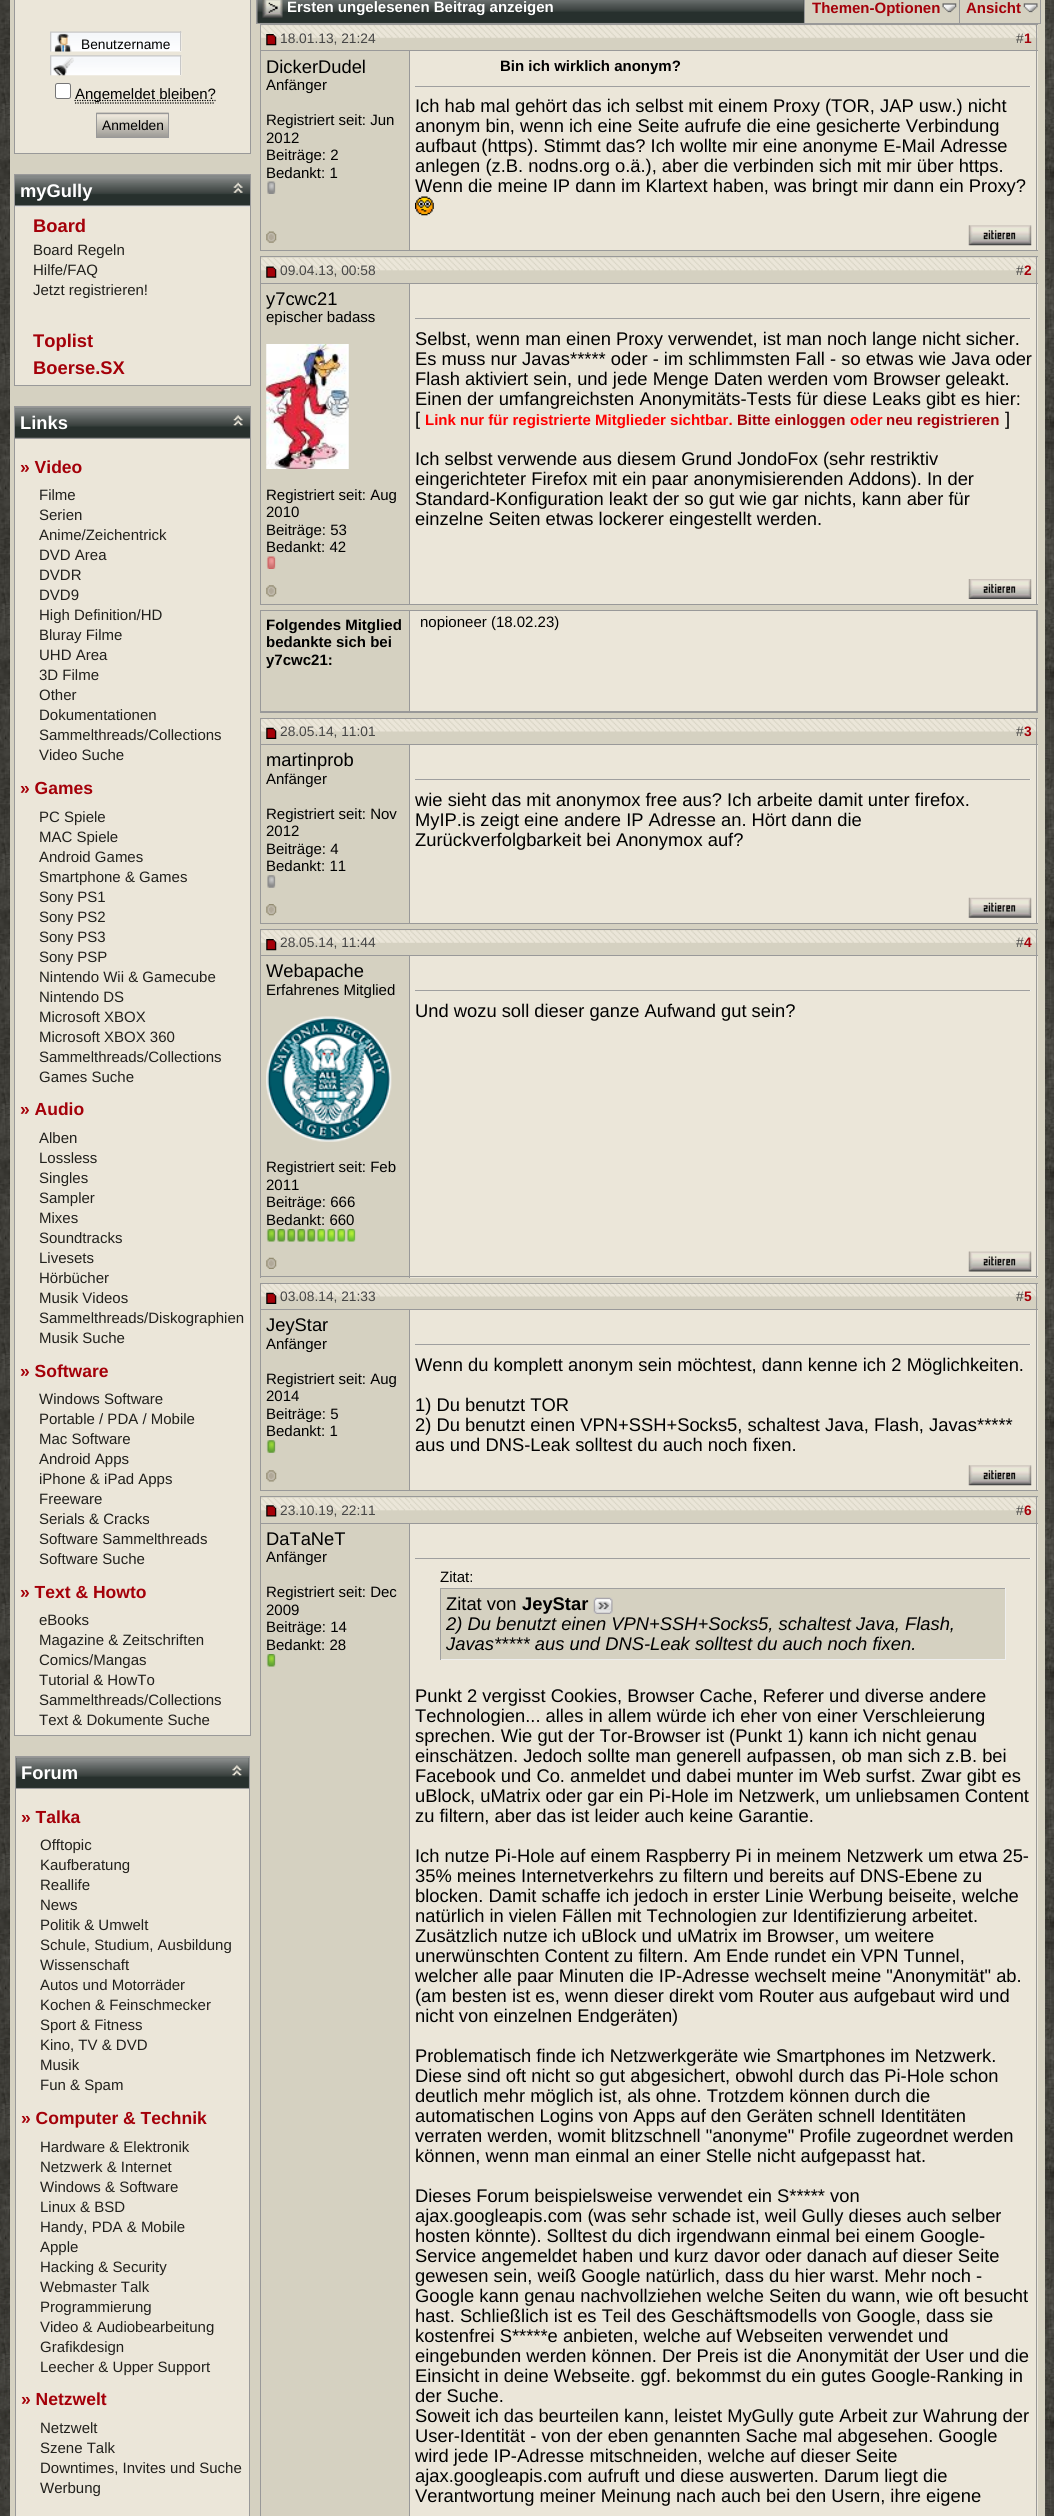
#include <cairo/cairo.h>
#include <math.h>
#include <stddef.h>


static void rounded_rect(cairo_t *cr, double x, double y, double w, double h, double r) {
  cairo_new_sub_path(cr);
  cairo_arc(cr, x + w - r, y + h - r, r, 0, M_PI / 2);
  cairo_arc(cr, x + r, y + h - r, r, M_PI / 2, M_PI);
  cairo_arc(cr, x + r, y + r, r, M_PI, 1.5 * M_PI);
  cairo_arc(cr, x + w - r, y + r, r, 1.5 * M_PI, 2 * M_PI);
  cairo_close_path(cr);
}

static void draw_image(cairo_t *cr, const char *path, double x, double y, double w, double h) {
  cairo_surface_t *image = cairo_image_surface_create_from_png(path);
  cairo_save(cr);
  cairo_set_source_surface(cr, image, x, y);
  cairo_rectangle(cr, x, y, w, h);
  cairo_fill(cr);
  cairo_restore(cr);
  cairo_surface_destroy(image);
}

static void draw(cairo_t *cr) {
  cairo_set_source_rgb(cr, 1, 1, 1);
  cairo_paint(cr);
  draw_image(cr, "images/1.png", 0, 0, 1054, 2516);
  cairo_set_source_rgb(cr, 213 / 255.0, 209 / 255.0, 193 / 255.0);
  cairo_rectangle(cr, 10, 0, 1035, 2516);
  cairo_fill(cr);
  cairo_set_source_rgb(cr, 153 / 255.0, 153 / 255.0, 153 / 255.0);
  cairo_rectangle(cr, 14, 0, 237, 154);
  cairo_fill(cr);
  cairo_set_source_rgb(cr, 235 / 255.0, 230 / 255.0, 217 / 255.0);
  cairo_rectangle(cr, 15, 0, 235, 153);
  cairo_fill(cr);
  draw_image(cr, "images/2.png", 50, 31, 132, 21);
  cairo_set_source_rgb(cr, 200 / 255.0, 200 / 255.0, 200 / 255.0);
  cairo_rectangle(cr, 180, 31, 1, 20);
  cairo_fill(cr);
  draw_image(cr, "images/3.png", 50, 55, 132, 21);
  cairo_rectangle(cr, 180, 55, 1, 20);
  cairo_fill(cr);
  cairo_set_source_rgb(cr, 1, 1, 1);
  rounded_rect(cr, 55.5, 83.5, 15, 15, 2);
  cairo_fill_preserve(cr);
  cairo_set_source_rgb(cr, 118 / 255.0, 118 / 255.0, 118 / 255.0);
  cairo_set_line_width(cr, 1);
  cairo_stroke(cr);
  cairo_new_path(cr);
  cairo_move_to(cr, 75, 103);
  cairo_line_to(cr, 215, 103);
  cairo_set_source_rgb(cr, 0, 0, 0);
  cairo_set_line_width(cr, 1.2);
  cairo_set_dash(cr, (double[]){1.25, 1.25}, 2, 0);
  cairo_stroke(cr);
  cairo_new_path(cr);
  cairo_move_to(cr, 74.5, 100.5);
  cairo_line_to(cr, 215.5, 100.5);
  cairo_stroke(cr);
  draw_image(cr, "images/4.png", 96, 112, 73, 25);
  cairo_rectangle(cr, 96.5, 113.5, 72, 24);
  cairo_set_source_rgb(cr, 153 / 255.0, 153 / 255.0, 153 / 255.0);
  cairo_set_line_width(cr, 1);
  cairo_set_dash(cr, NULL, 0, 0);
  cairo_stroke(cr);
  cairo_rectangle(cr, 14, 174, 237, 212);
  cairo_fill(cr);
  draw_image(cr, "images/5.png", 15, 175, 235, 31);
  draw_image(cr, "images/6.png", 233, 182, 10, 11);
  cairo_set_source_rgb(cr, 235 / 255.0, 230 / 255.0, 217 / 255.0);
  cairo_rectangle(cr, 15, 207, 235, 178);
  cairo_fill(cr);
  cairo_set_source_rgb(cr, 218 / 255.0, 218 / 255.0, 218 / 255.0);
  cairo_rectangle(cr, 15, 206, 235, 1);
  cairo_fill(cr);
  cairo_set_source_rgb(cr, 153 / 255.0, 153 / 255.0, 153 / 255.0);
  cairo_rectangle(cr, 14, 406, 237, 1330);
  cairo_fill(cr);
  draw_image(cr, "images/7.png", 15, 407, 235, 31);
  draw_image(cr, "images/8.png", 233, 415, 10, 11);
  cairo_set_source_rgb(cr, 235 / 255.0, 230 / 255.0, 217 / 255.0);
  cairo_rectangle(cr, 15, 439, 235, 1296);
  cairo_fill(cr);
  cairo_set_source_rgb(cr, 153 / 255.0, 153 / 255.0, 153 / 255.0);
  cairo_rectangle(cr, 15, 1756, 235, 760);
  cairo_fill(cr);
  cairo_set_source_rgb(cr, 62 / 255.0, 68 / 255.0, 66 / 255.0);
  cairo_rectangle(cr, 16, 1758, 233, 30);
  cairo_fill(cr);
  draw_image(cr, "images/9.png", 16, 1757, 233, 31);
  draw_image(cr, "images/10.png", 232, 1765, 10, 11);
  cairo_set_source_rgb(cr, 235 / 255.0, 230 / 255.0, 217 / 255.0);
  cairo_rectangle(cr, 16, 1789, 233, 727);
  cairo_fill(cr);
  cairo_set_source_rgb(cr, 153 / 255.0, 153 / 255.0, 153 / 255.0);
  cairo_rectangle(cr, 256, 0, 785, 24);
  cairo_fill(cr);
  cairo_set_source_rgb(cr, 62 / 255.0, 68 / 255.0, 66 / 255.0);
  cairo_rectangle(cr, 258, 0, 546, 23);
  cairo_fill(cr);
  draw_image(cr, "images/11.png", 257, 0, 547, 23);
  draw_image(cr, "images/12.png", 262, 0, 21, 18);
  cairo_set_source_rgb(cr, 213 / 255.0, 209 / 255.0, 193 / 255.0);
  cairo_rectangle(cr, 805, 0, 154, 23);
  cairo_fill(cr);
  draw_image(cr, "images/13.png", 942, 3, 15, 10);
  cairo_rectangle(cr, 960, 0, 80, 23);
  cairo_fill(cr);
  draw_image(cr, "images/14.png", 1023, 3, 15, 10);
  draw_image(cr, "images/15.png", 261, 25, 149, 13);
  cairo_set_source_rgb(cr, 153 / 255.0, 153 / 255.0, 153 / 255.0);
  cairo_rectangle(cr, 260, 24, 778, 1);
  cairo_fill(cr);
  cairo_rectangle(cr, 260, 50, 150, 1);
  cairo_fill(cr);
  cairo_rectangle(cr, 260, 24, 1, 196);
  cairo_fill(cr);
  draw_image(cr, "images/16.png", 266, 34, 11, 12);
  draw_image(cr, "images/17.png", 410, 25, 628, 13);
  cairo_rectangle(cr, 1036, 24, 1, 27);
  cairo_fill(cr);
  cairo_rectangle(cr, 410, 50, 628, 1);
  cairo_fill(cr);
  cairo_rectangle(cr, 409, 51, 1, 200);
  cairo_fill(cr);
  draw_image(cr, "images/18.png", 267, 181, 9, 13);
  cairo_set_source_rgb(cr, 235 / 255.0, 230 / 255.0, 217 / 255.0);
  cairo_rectangle(cr, 410, 51, 628, 199);
  cairo_fill(cr);
  cairo_set_source_rgb(cr, 153 / 255.0, 153 / 255.0, 153 / 255.0);
  cairo_rectangle(cr, 1036, 51, 1, 200);
  cairo_fill(cr);
  cairo_set_source_rgb(cr, 159 / 255.0, 159 / 255.0, 159 / 255.0);
  cairo_rectangle(cr, 415, 86, 616, 1);
  cairo_fill(cr);
  cairo_set_source_rgb(cr, 238 / 255.0, 238 / 255.0, 238 / 255.0);
  cairo_rectangle(cr, 1030, 86, 1, 1);
  cairo_fill(cr);
  draw_image(cr, "images/19.png", 415, 196, 19, 20);
  cairo_set_source_rgb(cr, 153 / 255.0, 153 / 255.0, 153 / 255.0);
  cairo_rectangle(cr, 260, 250, 778, 1);
  cairo_fill(cr);
  cairo_rectangle(cr, 260, 220, 1, 31);
  cairo_fill(cr);
  draw_image(cr, "images/20.png", 266, 231, 11, 12);
  draw_image(cr, "images/21.png", 968, 225, 64, 21);
  draw_image(cr, "images/22.png", 261, 257, 149, 14);
  cairo_rectangle(cr, 260, 256, 778, 1);
  cairo_fill(cr);
  cairo_rectangle(cr, 260, 283, 150, 1);
  cairo_fill(cr);
  cairo_rectangle(cr, 260, 256, 1, 318);
  cairo_fill(cr);
  draw_image(cr, "images/23.png", 266, 266, 11, 12);
  draw_image(cr, "images/24.png", 410, 257, 628, 14);
  cairo_rectangle(cr, 1036, 256, 1, 28);
  cairo_fill(cr);
  cairo_rectangle(cr, 410, 283, 628, 1);
  cairo_fill(cr);
  cairo_rectangle(cr, 409, 284, 1, 321);
  cairo_fill(cr);
  draw_image(cr, "images/25.png", 266, 344, 83, 125);
  draw_image(cr, "images/26.png", 266, 556, 10, 13);
  cairo_set_source_rgb(cr, 235 / 255.0, 230 / 255.0, 217 / 255.0);
  cairo_rectangle(cr, 410, 284, 628, 320);
  cairo_fill(cr);
  cairo_set_source_rgb(cr, 153 / 255.0, 153 / 255.0, 153 / 255.0);
  cairo_rectangle(cr, 1036, 284, 1, 321);
  cairo_fill(cr);
  cairo_set_source_rgb(cr, 159 / 255.0, 159 / 255.0, 159 / 255.0);
  cairo_rectangle(cr, 415, 318, 616, 1);
  cairo_fill(cr);
  cairo_set_source_rgb(cr, 238 / 255.0, 238 / 255.0, 238 / 255.0);
  cairo_rectangle(cr, 1030, 318, 1, 1);
  cairo_fill(cr);
  cairo_set_source_rgb(cr, 153 / 255.0, 153 / 255.0, 153 / 255.0);
  cairo_rectangle(cr, 260, 604, 778, 1);
  cairo_fill(cr);
  cairo_rectangle(cr, 260, 574, 1, 31);
  cairo_fill(cr);
  draw_image(cr, "images/27.png", 266, 585, 11, 12);
  draw_image(cr, "images/28.png", 968, 579, 64, 20);
  cairo_rectangle(cr, 260, 610, 778, 103);
  cairo_fill(cr);
  cairo_set_source_rgb(cr, 213 / 255.0, 209 / 255.0, 193 / 255.0);
  cairo_rectangle(cr, 261, 611, 148, 100);
  cairo_fill(cr);
  cairo_set_source_rgb(cr, 235 / 255.0, 230 / 255.0, 217 / 255.0);
  cairo_rectangle(cr, 410, 611, 626, 100);
  cairo_fill(cr);
  draw_image(cr, "images/29.png", 261, 719, 149, 13);
  cairo_set_source_rgb(cr, 153 / 255.0, 153 / 255.0, 153 / 255.0);
  cairo_rectangle(cr, 260, 718, 778, 1);
  cairo_fill(cr);
  cairo_rectangle(cr, 260, 744, 150, 1);
  cairo_fill(cr);
  cairo_rectangle(cr, 260, 718, 1, 175);
  cairo_fill(cr);
  draw_image(cr, "images/30.png", 266, 727, 11, 12);
  draw_image(cr, "images/31.png", 410, 719, 628, 13);
  cairo_rectangle(cr, 1036, 718, 1, 27);
  cairo_fill(cr);
  cairo_rectangle(cr, 410, 744, 628, 1);
  cairo_fill(cr);
  cairo_rectangle(cr, 409, 745, 1, 179);
  cairo_fill(cr);
  draw_image(cr, "images/32.png", 267, 875, 9, 13);
  cairo_set_source_rgb(cr, 235 / 255.0, 230 / 255.0, 217 / 255.0);
  cairo_rectangle(cr, 410, 745, 628, 178);
  cairo_fill(cr);
  cairo_set_source_rgb(cr, 153 / 255.0, 153 / 255.0, 153 / 255.0);
  cairo_rectangle(cr, 1036, 745, 1, 179);
  cairo_fill(cr);
  cairo_set_source_rgb(cr, 159 / 255.0, 159 / 255.0, 159 / 255.0);
  cairo_rectangle(cr, 415, 779, 616, 1);
  cairo_fill(cr);
  cairo_set_source_rgb(cr, 238 / 255.0, 238 / 255.0, 238 / 255.0);
  cairo_rectangle(cr, 1030, 779, 1, 1);
  cairo_fill(cr);
  cairo_set_source_rgb(cr, 153 / 255.0, 153 / 255.0, 153 / 255.0);
  cairo_rectangle(cr, 260, 923, 778, 1);
  cairo_fill(cr);
  cairo_rectangle(cr, 260, 893, 1, 31);
  cairo_fill(cr);
  draw_image(cr, "images/33.png", 266, 904, 11, 12);
  draw_image(cr, "images/34.png", 968, 897, 64, 21);
  draw_image(cr, "images/35.png", 261, 930, 149, 13);
  cairo_rectangle(cr, 260, 929, 778, 1);
  cairo_fill(cr);
  cairo_rectangle(cr, 260, 955, 150, 1);
  cairo_fill(cr);
  cairo_rectangle(cr, 260, 929, 1, 317);
  cairo_fill(cr);
  draw_image(cr, "images/16.png", 266, 939, 11, 12);
  draw_image(cr, "images/36.png", 410, 930, 628, 13);
  cairo_rectangle(cr, 1036, 929, 1, 27);
  cairo_fill(cr);
  cairo_rectangle(cr, 410, 955, 628, 1);
  cairo_fill(cr);
  cairo_rectangle(cr, 409, 956, 1, 322);
  cairo_fill(cr);
  draw_image(cr, "images/37.png", 266, 1016, 126, 126);
  draw_image(cr, "images/38.png", 266, 1229, 10, 13);
  draw_image(cr, "images/38.png", 276, 1229, 10, 13);
  draw_image(cr, "images/38.png", 286, 1229, 10, 13);
  draw_image(cr, "images/38.png", 296, 1229, 10, 13);
  draw_image(cr, "images/38.png", 306, 1229, 10, 13);
  draw_image(cr, "images/39.png", 316, 1229, 10, 13);
  draw_image(cr, "images/39.png", 326, 1229, 10, 13);
  draw_image(cr, "images/39.png", 336, 1229, 10, 13);
  draw_image(cr, "images/39.png", 346, 1229, 10, 13);
  cairo_set_source_rgb(cr, 235 / 255.0, 230 / 255.0, 217 / 255.0);
  cairo_rectangle(cr, 410, 956, 628, 322);
  cairo_fill(cr);
  cairo_set_source_rgb(cr, 153 / 255.0, 153 / 255.0, 153 / 255.0);
  cairo_rectangle(cr, 1036, 956, 1, 322);
  cairo_fill(cr);
  cairo_set_source_rgb(cr, 159 / 255.0, 159 / 255.0, 159 / 255.0);
  cairo_rectangle(cr, 415, 990, 616, 1);
  cairo_fill(cr);
  cairo_set_source_rgb(cr, 238 / 255.0, 238 / 255.0, 238 / 255.0);
  cairo_rectangle(cr, 1030, 990, 1, 1);
  cairo_fill(cr);
  cairo_set_source_rgb(cr, 153 / 255.0, 153 / 255.0, 153 / 255.0);
  cairo_rectangle(cr, 260, 1276, 778, 1);
  cairo_fill(cr);
  cairo_rectangle(cr, 260, 1246, 1, 32);
  cairo_fill(cr);
  draw_image(cr, "images/40.png", 266, 1257, 11, 12);
  draw_image(cr, "images/41.png", 968, 1251, 64, 21);
  draw_image(cr, "images/42.png", 261, 1284, 149, 13);
  cairo_rectangle(cr, 260, 1283, 778, 1);
  cairo_fill(cr);
  cairo_rectangle(cr, 260, 1309, 150, 1);
  cairo_fill(cr);
  cairo_rectangle(cr, 260, 1283, 1, 177);
  cairo_fill(cr);
  draw_image(cr, "images/30.png", 266, 1292, 11, 12);
  draw_image(cr, "images/43.png", 410, 1284, 628, 13);
  cairo_rectangle(cr, 1036, 1283, 1, 27);
  cairo_fill(cr);
  cairo_rectangle(cr, 410, 1309, 628, 1);
  cairo_fill(cr);
  cairo_rectangle(cr, 409, 1310, 1, 181);
  cairo_fill(cr);
  draw_image(cr, "images/44.png", 266, 1440, 10, 13);
  cairo_set_source_rgb(cr, 235 / 255.0, 230 / 255.0, 217 / 255.0);
  cairo_rectangle(cr, 410, 1310, 628, 180);
  cairo_fill(cr);
  cairo_set_source_rgb(cr, 153 / 255.0, 153 / 255.0, 153 / 255.0);
  cairo_rectangle(cr, 1036, 1310, 1, 181);
  cairo_fill(cr);
  cairo_set_source_rgb(cr, 159 / 255.0, 159 / 255.0, 159 / 255.0);
  cairo_rectangle(cr, 415, 1344, 616, 1);
  cairo_fill(cr);
  cairo_set_source_rgb(cr, 238 / 255.0, 238 / 255.0, 238 / 255.0);
  cairo_rectangle(cr, 1030, 1344, 1, 1);
  cairo_fill(cr);
  cairo_set_source_rgb(cr, 153 / 255.0, 153 / 255.0, 153 / 255.0);
  cairo_rectangle(cr, 260, 1490, 778, 1);
  cairo_fill(cr);
  cairo_rectangle(cr, 260, 1460, 1, 31);
  cairo_fill(cr);
  draw_image(cr, "images/27.png", 266, 1470, 11, 12);
  draw_image(cr, "images/21.png", 968, 1465, 64, 21);
  draw_image(cr, "images/45.png", 261, 1497, 149, 14);
  cairo_rectangle(cr, 260, 1496, 778, 1);
  cairo_fill(cr);
  cairo_rectangle(cr, 260, 1523, 150, 1);
  cairo_fill(cr);
  cairo_rectangle(cr, 260, 1496, 1, 1020);
  cairo_fill(cr);
  draw_image(cr, "images/46.png", 266, 1505, 11, 12);
  draw_image(cr, "images/47.png", 410, 1497, 628, 14);
  cairo_rectangle(cr, 1036, 1496, 1, 28);
  cairo_fill(cr);
  cairo_rectangle(cr, 410, 1523, 628, 1);
  cairo_fill(cr);
  cairo_rectangle(cr, 409, 1524, 1, 992);
  cairo_fill(cr);
  draw_image(cr, "images/38.png", 266, 1654, 10, 13);
  cairo_set_source_rgb(cr, 235 / 255.0, 230 / 255.0, 217 / 255.0);
  cairo_rectangle(cr, 410, 1524, 628, 992);
  cairo_fill(cr);
  cairo_set_source_rgb(cr, 153 / 255.0, 153 / 255.0, 153 / 255.0);
  cairo_rectangle(cr, 1036, 1524, 1, 992);
  cairo_fill(cr);
  cairo_set_source_rgb(cr, 159 / 255.0, 159 / 255.0, 159 / 255.0);
  cairo_rectangle(cr, 415, 1558, 616, 1);
  cairo_fill(cr);
  cairo_set_source_rgb(cr, 238 / 255.0, 238 / 255.0, 238 / 255.0);
  cairo_rectangle(cr, 1030, 1558, 1, 1);
  cairo_fill(cr);
  cairo_set_source_rgb(cr, 213 / 255.0, 209 / 255.0, 193 / 255.0);
  cairo_rectangle(cr, 441, 1589, 564, 70);
  cairo_fill(cr);
  cairo_set_source_rgb(cr, 159 / 255.0, 159 / 255.0, 159 / 255.0);
  cairo_rectangle(cr, 440, 1588, 566, 1);
  cairo_fill(cr);
  cairo_set_source_rgb(cr, 238 / 255.0, 238 / 255.0, 238 / 255.0);
  cairo_rectangle(cr, 1005, 1588, 1, 72);
  cairo_fill(cr);
  cairo_rectangle(cr, 440, 1659, 566, 1);
  cairo_fill(cr);
  cairo_set_source_rgb(cr, 159 / 255.0, 159 / 255.0, 159 / 255.0);
  cairo_rectangle(cr, 440, 1588, 1, 72);
  cairo_fill(cr);
  draw_image(cr, "images/48.png", 593, 1597, 20, 17);
  cairo_select_font_face(cr, "Liberation Sans", CAIRO_FONT_SLANT_NORMAL, CAIRO_FONT_WEIGHT_NORMAL);
  cairo_set_font_size(cr, 13.75);
  cairo_set_source_rgb(cr, 0, 0, 0);
  cairo_move_to(cr, 81, 49);
  cairo_show_text(cr, "Benutzername");
  cairo_set_font_size(cr, 15);
  cairo_move_to(cr, 75, 99);
  cairo_show_text(cr, "Angemeldet bleiben?");
  cairo_set_font_size(cr, 13.75);
  cairo_move_to(cr, 102, 130);
  cairo_show_text(cr, "Anmelden");
  cairo_select_font_face(cr, "Liberation Sans", CAIRO_FONT_SLANT_NORMAL, CAIRO_FONT_WEIGHT_BOLD);
  cairo_set_font_size(cr, 18.35);
  cairo_set_source_rgb(cr, 1, 1, 1);
  cairo_move_to(cr, 20, 197);
  cairo_show_text(cr, "myGully");
  cairo_set_source_rgb(cr, 164 / 255.0, 0, 9 / 255.0);
  cairo_move_to(cr, 33, 232);
  cairo_show_text(cr, "Board");
  cairo_select_font_face(cr, "Liberation Sans", CAIRO_FONT_SLANT_NORMAL, CAIRO_FONT_WEIGHT_NORMAL);
  cairo_set_font_size(cr, 15);
  cairo_set_source_rgb(cr, 33 / 255.0, 32 / 255.0, 28 / 255.0);
  cairo_move_to(cr, 33, 255);
  cairo_show_text(cr, "Board Regeln");
  cairo_move_to(cr, 33, 275);
  cairo_show_text(cr, "Hilfe/FAQ");
  cairo_move_to(cr, 33, 295);
  cairo_show_text(cr, "Jetzt registrieren!");
  cairo_select_font_face(cr, "Liberation Sans", CAIRO_FONT_SLANT_NORMAL, CAIRO_FONT_WEIGHT_BOLD);
  cairo_set_font_size(cr, 18.35);
  cairo_set_source_rgb(cr, 164 / 255.0, 0, 9 / 255.0);
  cairo_move_to(cr, 33, 347);
  cairo_show_text(cr, "Toplist");
  cairo_move_to(cr, 33, 374);
  cairo_show_text(cr, "Boerse.SX");
  cairo_set_source_rgb(cr, 1, 1, 1);
  cairo_move_to(cr, 20, 429);
  cairo_show_text(cr, "Links");
  cairo_set_font_size(cr, 17.5);
  cairo_set_source_rgb(cr, 164 / 255.0, 0, 9 / 255.0);
  cairo_move_to(cr, 20, 473);
  cairo_show_text(cr, "» Video");
  cairo_select_font_face(cr, "Liberation Sans", CAIRO_FONT_SLANT_NORMAL, CAIRO_FONT_WEIGHT_NORMAL);
  cairo_set_font_size(cr, 15);
  cairo_set_source_rgb(cr, 33 / 255.0, 32 / 255.0, 28 / 255.0);
  cairo_move_to(cr, 39, 500);
  cairo_show_text(cr, "Filme");
  cairo_move_to(cr, 39, 520);
  cairo_show_text(cr, "Serien");
  cairo_move_to(cr, 39, 540);
  cairo_show_text(cr, "Anime/Zeichentrick");
  cairo_move_to(cr, 39, 560);
  cairo_show_text(cr, "DVD Area");
  cairo_move_to(cr, 39, 580);
  cairo_show_text(cr, "DVDR");
  cairo_move_to(cr, 39, 600);
  cairo_show_text(cr, "DVD9");
  cairo_move_to(cr, 39, 620);
  cairo_show_text(cr, "High Definition/HD");
  cairo_move_to(cr, 39, 640);
  cairo_show_text(cr, "Bluray Filme");
  cairo_move_to(cr, 39, 660);
  cairo_show_text(cr, "UHD Area");
  cairo_move_to(cr, 39, 680);
  cairo_show_text(cr, "3D Filme");
  cairo_move_to(cr, 39, 700);
  cairo_show_text(cr, "Other");
  cairo_move_to(cr, 39, 720);
  cairo_show_text(cr, "Dokumentationen");
  cairo_move_to(cr, 39, 740);
  cairo_show_text(cr, "Sammelthreads/Collections");
  cairo_move_to(cr, 39, 760);
  cairo_show_text(cr, "Video Suche");
  cairo_select_font_face(cr, "Liberation Sans", CAIRO_FONT_SLANT_NORMAL, CAIRO_FONT_WEIGHT_BOLD);
  cairo_set_font_size(cr, 17.5);
  cairo_set_source_rgb(cr, 164 / 255.0, 0, 9 / 255.0);
  cairo_move_to(cr, 20, 794);
  cairo_show_text(cr, "» Games");
  cairo_select_font_face(cr, "Liberation Sans", CAIRO_FONT_SLANT_NORMAL, CAIRO_FONT_WEIGHT_NORMAL);
  cairo_set_font_size(cr, 15);
  cairo_set_source_rgb(cr, 33 / 255.0, 32 / 255.0, 28 / 255.0);
  cairo_move_to(cr, 39, 822);
  cairo_show_text(cr, "PC Spiele");
  cairo_move_to(cr, 39, 842);
  cairo_show_text(cr, "MAC Spiele");
  cairo_move_to(cr, 39, 862);
  cairo_show_text(cr, "Android Games");
  cairo_move_to(cr, 39, 882);
  cairo_show_text(cr, "Smartphone & Games");
  cairo_move_to(cr, 39, 902);
  cairo_show_text(cr, "Sony PS1");
  cairo_move_to(cr, 39, 922);
  cairo_show_text(cr, "Sony PS2");
  cairo_move_to(cr, 39, 942);
  cairo_show_text(cr, "Sony PS3");
  cairo_move_to(cr, 39, 962);
  cairo_show_text(cr, "Sony PSP");
  cairo_move_to(cr, 39, 982);
  cairo_show_text(cr, "Nintendo Wii & Gamecube");
  cairo_move_to(cr, 39, 1002);
  cairo_show_text(cr, "Nintendo DS");
  cairo_move_to(cr, 39, 1022);
  cairo_show_text(cr, "Microsoft XBOX");
  cairo_move_to(cr, 39, 1042);
  cairo_show_text(cr, "Microsoft XBOX 360");
  cairo_move_to(cr, 39, 1062);
  cairo_show_text(cr, "Sammelthreads/Collections");
  cairo_move_to(cr, 39, 1082);
  cairo_show_text(cr, "Games Suche");
  cairo_select_font_face(cr, "Liberation Sans", CAIRO_FONT_SLANT_NORMAL, CAIRO_FONT_WEIGHT_BOLD);
  cairo_set_font_size(cr, 17.5);
  cairo_set_source_rgb(cr, 164 / 255.0, 0, 9 / 255.0);
  cairo_move_to(cr, 20, 1115);
  cairo_show_text(cr, "» Audio");
  cairo_select_font_face(cr, "Liberation Sans", CAIRO_FONT_SLANT_NORMAL, CAIRO_FONT_WEIGHT_NORMAL);
  cairo_set_font_size(cr, 15);
  cairo_set_source_rgb(cr, 33 / 255.0, 32 / 255.0, 28 / 255.0);
  cairo_move_to(cr, 39, 1143);
  cairo_show_text(cr, "Alben");
  cairo_move_to(cr, 39, 1163);
  cairo_show_text(cr, "Lossless");
  cairo_move_to(cr, 39, 1183);
  cairo_show_text(cr, "Singles");
  cairo_move_to(cr, 39, 1203);
  cairo_show_text(cr, "Sampler");
  cairo_move_to(cr, 39, 1223);
  cairo_show_text(cr, "Mixes");
  cairo_move_to(cr, 39, 1243);
  cairo_show_text(cr, "Soundtracks");
  cairo_move_to(cr, 39, 1263);
  cairo_show_text(cr, "Livesets");
  cairo_move_to(cr, 39, 1283);
  cairo_show_text(cr, "Hörbücher");
  cairo_move_to(cr, 39, 1303);
  cairo_show_text(cr, "Musik Videos");
  cairo_move_to(cr, 39, 1323);
  cairo_show_text(cr, "Sammelthreads/Diskographien");
  cairo_move_to(cr, 39, 1343);
  cairo_show_text(cr, "Musik Suche");
  cairo_select_font_face(cr, "Liberation Sans", CAIRO_FONT_SLANT_NORMAL, CAIRO_FONT_WEIGHT_BOLD);
  cairo_set_font_size(cr, 17.5);
  cairo_set_source_rgb(cr, 164 / 255.0, 0, 9 / 255.0);
  cairo_move_to(cr, 20, 1377);
  cairo_show_text(cr, "» Software");
  cairo_select_font_face(cr, "Liberation Sans", CAIRO_FONT_SLANT_NORMAL, CAIRO_FONT_WEIGHT_NORMAL);
  cairo_set_font_size(cr, 15);
  cairo_set_source_rgb(cr, 33 / 255.0, 32 / 255.0, 28 / 255.0);
  cairo_move_to(cr, 39, 1404);
  cairo_show_text(cr, "Windows Software");
  cairo_move_to(cr, 39, 1424);
  cairo_show_text(cr, "Portable / PDA / Mobile");
  cairo_move_to(cr, 39, 1444);
  cairo_show_text(cr, "Mac Software");
  cairo_move_to(cr, 39, 1464);
  cairo_show_text(cr, "Android Apps");
  cairo_move_to(cr, 39, 1484);
  cairo_show_text(cr, "iPhone & iPad Apps");
  cairo_move_to(cr, 39, 1504);
  cairo_show_text(cr, "Freeware");
  cairo_move_to(cr, 39, 1524);
  cairo_show_text(cr, "Serials & Cracks");
  cairo_move_to(cr, 39, 1544);
  cairo_show_text(cr, "Software Sammelthreads");
  cairo_move_to(cr, 39, 1564);
  cairo_show_text(cr, "Software Suche");
  cairo_select_font_face(cr, "Liberation Sans", CAIRO_FONT_SLANT_NORMAL, CAIRO_FONT_WEIGHT_BOLD);
  cairo_set_font_size(cr, 17.5);
  cairo_set_source_rgb(cr, 164 / 255.0, 0, 9 / 255.0);
  cairo_move_to(cr, 20, 1598);
  cairo_show_text(cr, "» Text & Howto");
  cairo_select_font_face(cr, "Liberation Sans", CAIRO_FONT_SLANT_NORMAL, CAIRO_FONT_WEIGHT_NORMAL);
  cairo_set_font_size(cr, 15);
  cairo_set_source_rgb(cr, 33 / 255.0, 32 / 255.0, 28 / 255.0);
  cairo_move_to(cr, 39, 1625);
  cairo_show_text(cr, "eBooks");
  cairo_move_to(cr, 39, 1645);
  cairo_show_text(cr, "Magazine & Zeitschriften");
  cairo_move_to(cr, 39, 1665);
  cairo_show_text(cr, "Comics/Mangas");
  cairo_move_to(cr, 39, 1685);
  cairo_show_text(cr, "Tutorial & HowTo");
  cairo_move_to(cr, 39, 1705);
  cairo_show_text(cr, "Sammelthreads/Collections");
  cairo_move_to(cr, 39, 1725);
  cairo_show_text(cr, "Text & Dokumente Suche");
  cairo_select_font_face(cr, "Liberation Sans", CAIRO_FONT_SLANT_NORMAL, CAIRO_FONT_WEIGHT_BOLD);
  cairo_set_font_size(cr, 18.35);
  cairo_set_source_rgb(cr, 1, 1, 1);
  cairo_move_to(cr, 21, 1779);
  cairo_show_text(cr, "Forum");
  cairo_set_font_size(cr, 17.5);
  cairo_set_source_rgb(cr, 164 / 255.0, 0, 9 / 255.0);
  cairo_move_to(cr, 21, 1823);
  cairo_show_text(cr, "» Talka");
  cairo_select_font_face(cr, "Liberation Sans", CAIRO_FONT_SLANT_NORMAL, CAIRO_FONT_WEIGHT_NORMAL);
  cairo_set_font_size(cr, 15);
  cairo_set_source_rgb(cr, 33 / 255.0, 32 / 255.0, 28 / 255.0);
  cairo_move_to(cr, 40, 1850);
  cairo_show_text(cr, "Offtopic");
  cairo_move_to(cr, 40, 1870);
  cairo_show_text(cr, "Kaufberatung");
  cairo_move_to(cr, 40, 1890);
  cairo_show_text(cr, "Reallife");
  cairo_move_to(cr, 40, 1910);
  cairo_show_text(cr, "News");
  cairo_move_to(cr, 40, 1930);
  cairo_show_text(cr, "Politik & Umwelt");
  cairo_move_to(cr, 40, 1950);
  cairo_show_text(cr, "Schule, Studium, Ausbildung");
  cairo_move_to(cr, 40, 1970);
  cairo_show_text(cr, "Wissenschaft");
  cairo_move_to(cr, 40, 1990);
  cairo_show_text(cr, "Autos und Motorräder");
  cairo_move_to(cr, 40, 2010);
  cairo_show_text(cr, "Kochen & Feinschmecker");
  cairo_move_to(cr, 40, 2030);
  cairo_show_text(cr, "Sport & Fitness");
  cairo_move_to(cr, 40, 2050);
  cairo_show_text(cr, "Kino, TV & DVD");
  cairo_move_to(cr, 40, 2070);
  cairo_show_text(cr, "Musik");
  cairo_move_to(cr, 40, 2090);
  cairo_show_text(cr, "Fun & Spam");
  cairo_select_font_face(cr, "Liberation Sans", CAIRO_FONT_SLANT_NORMAL, CAIRO_FONT_WEIGHT_BOLD);
  cairo_set_font_size(cr, 17.5);
  cairo_set_source_rgb(cr, 164 / 255.0, 0, 9 / 255.0);
  cairo_move_to(cr, 21, 2124);
  cairo_show_text(cr, "» Computer & Technik");
  cairo_select_font_face(cr, "Liberation Sans", CAIRO_FONT_SLANT_NORMAL, CAIRO_FONT_WEIGHT_NORMAL);
  cairo_set_font_size(cr, 15);
  cairo_set_source_rgb(cr, 33 / 255.0, 32 / 255.0, 28 / 255.0);
  cairo_move_to(cr, 40, 2152);
  cairo_show_text(cr, "Hardware & Elektronik");
  cairo_move_to(cr, 40, 2172);
  cairo_show_text(cr, "Netzwerk & Internet");
  cairo_move_to(cr, 40, 2192);
  cairo_show_text(cr, "Windows & Software");
  cairo_move_to(cr, 40, 2212);
  cairo_show_text(cr, "Linux & BSD");
  cairo_move_to(cr, 40, 2232);
  cairo_show_text(cr, "Handy, PDA & Mobile");
  cairo_move_to(cr, 40, 2252);
  cairo_show_text(cr, "Apple");
  cairo_move_to(cr, 40, 2272);
  cairo_show_text(cr, "Hacking & Security");
  cairo_move_to(cr, 40, 2292);
  cairo_show_text(cr, "Webmaster Talk");
  cairo_move_to(cr, 40, 2312);
  cairo_show_text(cr, "Programmierung");
  cairo_move_to(cr, 40, 2332);
  cairo_show_text(cr, "Video & Audiobearbeitung");
  cairo_move_to(cr, 40, 2352);
  cairo_show_text(cr, "Grafikdesign");
  cairo_move_to(cr, 40, 2372);
  cairo_show_text(cr, "Leecher & Upper Support");
  cairo_select_font_face(cr, "Liberation Sans", CAIRO_FONT_SLANT_NORMAL, CAIRO_FONT_WEIGHT_BOLD);
  cairo_set_font_size(cr, 17.5);
  cairo_set_source_rgb(cr, 164 / 255.0, 0, 9 / 255.0);
  cairo_move_to(cr, 21, 2405);
  cairo_show_text(cr, "» Netzwelt");
  cairo_select_font_face(cr, "Liberation Sans", CAIRO_FONT_SLANT_NORMAL, CAIRO_FONT_WEIGHT_NORMAL);
  cairo_set_font_size(cr, 15);
  cairo_set_source_rgb(cr, 33 / 255.0, 32 / 255.0, 28 / 255.0);
  cairo_move_to(cr, 40, 2433);
  cairo_show_text(cr, "Netzwelt");
  cairo_move_to(cr, 40, 2453);
  cairo_show_text(cr, "Szene Talk");
  cairo_move_to(cr, 40, 2473);
  cairo_show_text(cr, "Downtimes, Invites und Suche");
  cairo_move_to(cr, 40, 2493);
  cairo_show_text(cr, "Werbung");
  cairo_select_font_face(cr, "Liberation Sans", CAIRO_FONT_SLANT_NORMAL, CAIRO_FONT_WEIGHT_BOLD);
  cairo_set_source_rgb(cr, 1, 1, 1);
  cairo_move_to(cr, 287, 12);
  cairo_show_text(cr, "Ersten ungelesenen Beitrag anzeigen");
  cairo_set_source_rgb(cr, 164 / 255.0, 0, 9 / 255.0);
  cairo_move_to(cr, 812, 13);
  cairo_show_text(cr, "Themen-Optionen");
  cairo_move_to(cr, 966, 13);
  cairo_show_text(cr, "Ansicht");
  cairo_select_font_face(cr, "Liberation Sans", CAIRO_FONT_SLANT_NORMAL, CAIRO_FONT_WEIGHT_NORMAL);
  cairo_set_font_size(cr, 13.75);
  cairo_set_source_rgb(cr, 69 / 255.0, 69 / 255.0, 69 / 255.0);
  cairo_move_to(cr, 280, 43);
  cairo_show_text(cr, "18.01.13, 21:24");
  cairo_move_to(cr, 1016, 43);
  cairo_show_text(cr, "#");
  cairo_select_font_face(cr, "Liberation Sans", CAIRO_FONT_SLANT_NORMAL, CAIRO_FONT_WEIGHT_BOLD);
  cairo_set_source_rgb(cr, 164 / 255.0, 0, 9 / 255.0);
  cairo_move_to(cr, 1024, 43);
  cairo_show_text(cr, "1");
  cairo_select_font_face(cr, "Liberation Sans", CAIRO_FONT_SLANT_NORMAL, CAIRO_FONT_WEIGHT_NORMAL);
  cairo_set_font_size(cr, 18.35);
  cairo_set_source_rgb(cr, 0, 0, 0);
  cairo_move_to(cr, 266, 73);
  cairo_show_text(cr, "DickerDudel");
  cairo_set_font_size(cr, 15);
  cairo_move_to(cr, 266, 90);
  cairo_show_text(cr, "Anfänger");
  cairo_move_to(cr, 266, 125);
  cairo_show_text(cr, "Registriert seit: Jun");
  cairo_move_to(cr, 266, 143);
  cairo_show_text(cr, "2012");
  cairo_move_to(cr, 266, 160);
  cairo_show_text(cr, "Beiträge: 2");
  cairo_move_to(cr, 266, 178);
  cairo_show_text(cr, "Bedankt: 1");
  cairo_select_font_face(cr, "Liberation Sans", CAIRO_FONT_SLANT_NORMAL, CAIRO_FONT_WEIGHT_BOLD);
  cairo_move_to(cr, 500, 71);
  cairo_show_text(cr, "Bin ich wirklich anonym?");
  cairo_select_font_face(cr, "Liberation Sans", CAIRO_FONT_SLANT_NORMAL, CAIRO_FONT_WEIGHT_NORMAL);
  cairo_set_font_size(cr, 18.35);
  cairo_move_to(cr, 415, 112);
  cairo_show_text(cr, "Ich hab mal gehört das ich selbst mit einem Proxy (TOR, JAP usw.) nicht");
  cairo_move_to(cr, 415, 132);
  cairo_show_text(cr, "anonym bin, wenn ich eine Seite aufrufe die eine gesicherte Verbindung");
  cairo_move_to(cr, 415, 152);
  cairo_show_text(cr, "aufbaut (https). Stimmt das? Ich wollte mir eine anonyme E-Mail Adresse");
  cairo_move_to(cr, 415, 172);
  cairo_show_text(cr, "anlegen (z.B. nodns.org o.ä.), aber die verbinden sich mit mir über https.");
  cairo_move_to(cr, 415, 192);
  cairo_show_text(cr, "Wenn die meine IP dann im Klartext haben, was bringt mir dann ein Proxy?");
  cairo_set_font_size(cr, 13.75);
  cairo_set_source_rgb(cr, 69 / 255.0, 69 / 255.0, 69 / 255.0);
  cairo_move_to(cr, 280, 275);
  cairo_show_text(cr, "09.04.13, 00:58");
  cairo_move_to(cr, 1016, 275);
  cairo_show_text(cr, "#");
  cairo_select_font_face(cr, "Liberation Sans", CAIRO_FONT_SLANT_NORMAL, CAIRO_FONT_WEIGHT_BOLD);
  cairo_set_source_rgb(cr, 164 / 255.0, 0, 9 / 255.0);
  cairo_move_to(cr, 1024, 275);
  cairo_show_text(cr, "2");
  cairo_select_font_face(cr, "Liberation Sans", CAIRO_FONT_SLANT_NORMAL, CAIRO_FONT_WEIGHT_NORMAL);
  cairo_set_font_size(cr, 18.35);
  cairo_set_source_rgb(cr, 0, 0, 0);
  cairo_move_to(cr, 266, 305);
  cairo_show_text(cr, "y7cwc21");
  cairo_set_font_size(cr, 15);
  cairo_move_to(cr, 266, 322);
  cairo_show_text(cr, "epischer badass");
  cairo_move_to(cr, 266, 500);
  cairo_show_text(cr, "Registriert seit: Aug");
  cairo_move_to(cr, 266, 517);
  cairo_show_text(cr, "2010");
  cairo_move_to(cr, 266, 535);
  cairo_show_text(cr, "Beiträge: 53");
  cairo_move_to(cr, 266, 552);
  cairo_show_text(cr, "Bedankt: 42");
  cairo_set_font_size(cr, 18.35);
  cairo_move_to(cr, 415, 345);
  cairo_show_text(cr, "Selbst, wenn man einen Proxy verwendet, ist man noch lange nicht sicher.");
  cairo_move_to(cr, 415, 365);
  cairo_show_text(cr, "Es muss nur Javas***** oder - im schlimmsten Fall - so etwas wie Java oder");
  cairo_move_to(cr, 415, 385);
  cairo_show_text(cr, "Flash aktiviert sein, und jede Menge Daten werden vom Browser geleakt.");
  cairo_move_to(cr, 415, 405);
  cairo_show_text(cr, "Einen der umfangreichsten Anonymitäts-Tests für diese Leaks gibt es hier:");
  cairo_move_to(cr, 415, 425);
  cairo_show_text(cr, "[");
  cairo_select_font_face(cr, "Liberation Sans", CAIRO_FONT_SLANT_NORMAL, CAIRO_FONT_WEIGHT_BOLD);
  cairo_set_font_size(cr, 15);
  cairo_set_source_rgb(cr, 1, 0, 0);
  cairo_move_to(cr, 425, 425);
  cairo_show_text(cr, "Link nur für registrierte Mitglieder sichtbar.");
  cairo_set_source_rgb(cr, 164 / 255.0, 0, 9 / 255.0);
  cairo_move_to(cr, 737, 425);
  cairo_show_text(cr, "Bitte einloggen");
  cairo_set_source_rgb(cr, 1, 0, 0);
  cairo_move_to(cr, 850, 425);
  cairo_show_text(cr, "oder");
  cairo_set_source_rgb(cr, 164 / 255.0, 0, 9 / 255.0);
  cairo_move_to(cr, 886, 425);
  cairo_show_text(cr, "neu registrieren");
  cairo_select_font_face(cr, "Liberation Sans", CAIRO_FONT_SLANT_NORMAL, CAIRO_FONT_WEIGHT_NORMAL);
  cairo_set_font_size(cr, 18.35);
  cairo_set_source_rgb(cr, 0, 0, 0);
  cairo_move_to(cr, 1005, 425);
  cairo_show_text(cr, "]");
  cairo_move_to(cr, 415, 465);
  cairo_show_text(cr, "Ich selbst verwende aus diesem Grund JondoFox (sehr restriktiv");
  cairo_move_to(cr, 415, 485);
  cairo_show_text(cr, "eingerichteter Firefox mit ein paar anonymisierenden Addons). In der");
  cairo_move_to(cr, 415, 505);
  cairo_show_text(cr, "Standard-Konfiguration leakt der so gut wie gar nichts, kann aber für");
  cairo_move_to(cr, 415, 525);
  cairo_show_text(cr, "einzelne Seiten etwas lockerer eingestellt werden.");
  cairo_select_font_face(cr, "Liberation Sans", CAIRO_FONT_SLANT_NORMAL, CAIRO_FONT_WEIGHT_BOLD);
  cairo_set_font_size(cr, 15);
  cairo_move_to(cr, 266, 630);
  cairo_show_text(cr, "Folgendes Mitglied");
  cairo_move_to(cr, 266, 647);
  cairo_show_text(cr, "bedankte sich bei");
  cairo_move_to(cr, 266, 665);
  cairo_show_text(cr, "y7cwc21:");
  cairo_select_font_face(cr, "Liberation Sans", CAIRO_FONT_SLANT_NORMAL, CAIRO_FONT_WEIGHT_NORMAL);
  cairo_move_to(cr, 420, 627);
  cairo_show_text(cr, "nopioneer (18.02.23)");
  cairo_set_font_size(cr, 13.75);
  cairo_set_source_rgb(cr, 69 / 255.0, 69 / 255.0, 69 / 255.0);
  cairo_move_to(cr, 280, 736);
  cairo_show_text(cr, "28.05.14, 11:01");
  cairo_move_to(cr, 1016, 736);
  cairo_show_text(cr, "#");
  cairo_select_font_face(cr, "Liberation Sans", CAIRO_FONT_SLANT_NORMAL, CAIRO_FONT_WEIGHT_BOLD);
  cairo_set_source_rgb(cr, 164 / 255.0, 0, 9 / 255.0);
  cairo_move_to(cr, 1024, 736);
  cairo_show_text(cr, "3");
  cairo_select_font_face(cr, "Liberation Sans", CAIRO_FONT_SLANT_NORMAL, CAIRO_FONT_WEIGHT_NORMAL);
  cairo_set_font_size(cr, 18.35);
  cairo_set_source_rgb(cr, 0, 0, 0);
  cairo_move_to(cr, 266, 766);
  cairo_show_text(cr, "martinprob");
  cairo_set_font_size(cr, 15);
  cairo_move_to(cr, 266, 784);
  cairo_show_text(cr, "Anfänger");
  cairo_move_to(cr, 266, 819);
  cairo_show_text(cr, "Registriert seit: Nov");
  cairo_move_to(cr, 266, 836);
  cairo_show_text(cr, "2012");
  cairo_move_to(cr, 266, 854);
  cairo_show_text(cr, "Beiträge: 4");
  cairo_move_to(cr, 266, 871);
  cairo_show_text(cr, "Bedankt: 11");
  cairo_set_font_size(cr, 18.35);
  cairo_move_to(cr, 415, 806);
  cairo_show_text(cr, "wie sieht das mit anonymox free aus? Ich arbeite damit unter firefox.");
  cairo_move_to(cr, 415, 826);
  cairo_show_text(cr, "MyIP.is zeigt eine andere IP Adresse an. Hört dann die");
  cairo_move_to(cr, 415, 846);
  cairo_show_text(cr, "Zurückverfolgbarkeit bei Anonymox auf?");
  cairo_set_font_size(cr, 13.75);
  cairo_set_source_rgb(cr, 69 / 255.0, 69 / 255.0, 69 / 255.0);
  cairo_move_to(cr, 280, 947);
  cairo_show_text(cr, "28.05.14, 11:44");
  cairo_move_to(cr, 1016, 947);
  cairo_show_text(cr, "#");
  cairo_select_font_face(cr, "Liberation Sans", CAIRO_FONT_SLANT_NORMAL, CAIRO_FONT_WEIGHT_BOLD);
  cairo_set_source_rgb(cr, 164 / 255.0, 0, 9 / 255.0);
  cairo_move_to(cr, 1024, 947);
  cairo_show_text(cr, "4");
  cairo_select_font_face(cr, "Liberation Sans", CAIRO_FONT_SLANT_NORMAL, CAIRO_FONT_WEIGHT_NORMAL);
  cairo_set_font_size(cr, 18.35);
  cairo_set_source_rgb(cr, 0, 0, 0);
  cairo_move_to(cr, 266, 977);
  cairo_show_text(cr, "Webapache");
  cairo_set_font_size(cr, 15);
  cairo_move_to(cr, 266, 995);
  cairo_show_text(cr, "Erfahrenes Mitglied");
  cairo_move_to(cr, 266, 1172);
  cairo_show_text(cr, "Registriert seit: Feb");
  cairo_move_to(cr, 266, 1190);
  cairo_show_text(cr, "2011");
  cairo_move_to(cr, 266, 1207);
  cairo_show_text(cr, "Beiträge: 666");
  cairo_move_to(cr, 266, 1225);
  cairo_show_text(cr, "Bedankt: 660");
  cairo_set_font_size(cr, 18.35);
  cairo_move_to(cr, 415, 1017);
  cairo_show_text(cr, "Und wozu soll dieser ganze Aufwand gut sein?");
  cairo_set_font_size(cr, 13.75);
  cairo_set_source_rgb(cr, 69 / 255.0, 69 / 255.0, 69 / 255.0);
  cairo_move_to(cr, 280, 1301);
  cairo_show_text(cr, "03.08.14, 21:33");
  cairo_move_to(cr, 1016, 1301);
  cairo_show_text(cr, "#");
  cairo_select_font_face(cr, "Liberation Sans", CAIRO_FONT_SLANT_NORMAL, CAIRO_FONT_WEIGHT_BOLD);
  cairo_set_source_rgb(cr, 164 / 255.0, 0, 9 / 255.0);
  cairo_move_to(cr, 1024, 1301);
  cairo_show_text(cr, "5");
  cairo_select_font_face(cr, "Liberation Sans", CAIRO_FONT_SLANT_NORMAL, CAIRO_FONT_WEIGHT_NORMAL);
  cairo_set_font_size(cr, 18.35);
  cairo_set_source_rgb(cr, 0, 0, 0);
  cairo_move_to(cr, 266, 1331);
  cairo_show_text(cr, "JeyStar");
  cairo_set_font_size(cr, 15);
  cairo_move_to(cr, 266, 1349);
  cairo_show_text(cr, "Anfänger");
  cairo_move_to(cr, 266, 1384);
  cairo_show_text(cr, "Registriert seit: Aug");
  cairo_move_to(cr, 266, 1401);
  cairo_show_text(cr, "2014");
  cairo_move_to(cr, 266, 1419);
  cairo_show_text(cr, "Beiträge: 5");
  cairo_move_to(cr, 266, 1436);
  cairo_show_text(cr, "Bedankt: 1");
  cairo_set_font_size(cr, 18.35);
  cairo_move_to(cr, 415, 1371);
  cairo_show_text(cr, "Wenn du komplett anonym sein möchtest, dann kenne ich 2 Möglichkeiten.");
  cairo_move_to(cr, 415, 1411);
  cairo_show_text(cr, "1) Du benutzt TOR");
  cairo_move_to(cr, 415, 1431);
  cairo_show_text(cr, "2) Du benutzt einen VPN+SSH+Socks5, schaltest Java, Flash, Javas*****");
  cairo_move_to(cr, 415, 1451);
  cairo_show_text(cr, "aus und DNS-Leak solltest du auch noch fixen.");
  cairo_set_font_size(cr, 13.75);
  cairo_set_source_rgb(cr, 69 / 255.0, 69 / 255.0, 69 / 255.0);
  cairo_move_to(cr, 280, 1515);
  cairo_show_text(cr, "23.10.19, 22:11");
  cairo_move_to(cr, 1016, 1515);
  cairo_show_text(cr, "#");
  cairo_select_font_face(cr, "Liberation Sans", CAIRO_FONT_SLANT_NORMAL, CAIRO_FONT_WEIGHT_BOLD);
  cairo_set_source_rgb(cr, 164 / 255.0, 0, 9 / 255.0);
  cairo_move_to(cr, 1024, 1515);
  cairo_show_text(cr, "6");
  cairo_select_font_face(cr, "Liberation Sans", CAIRO_FONT_SLANT_NORMAL, CAIRO_FONT_WEIGHT_NORMAL);
  cairo_set_font_size(cr, 18.35);
  cairo_set_source_rgb(cr, 0, 0, 0);
  cairo_move_to(cr, 266, 1545);
  cairo_show_text(cr, "DaTaNeT");
  cairo_set_font_size(cr, 15);
  cairo_move_to(cr, 266, 1562);
  cairo_show_text(cr, "Anfänger");
  cairo_move_to(cr, 266, 1597);
  cairo_show_text(cr, "Registriert seit: Dec");
  cairo_move_to(cr, 266, 1615);
  cairo_show_text(cr, "2009");
  cairo_move_to(cr, 266, 1632);
  cairo_show_text(cr, "Beiträge: 14");
  cairo_move_to(cr, 266, 1650);
  cairo_show_text(cr, "Bedankt: 28");
  cairo_move_to(cr, 440, 1582);
  cairo_show_text(cr, "Zitat:");
  cairo_set_font_size(cr, 18.35);
  cairo_move_to(cr, 446, 1610);
  cairo_show_text(cr, "Zitat von");
  cairo_select_font_face(cr, "Liberation Sans", CAIRO_FONT_SLANT_NORMAL, CAIRO_FONT_WEIGHT_BOLD);
  cairo_move_to(cr, 522, 1610);
  cairo_show_text(cr, "JeyStar");
  cairo_select_font_face(cr, "Liberation Sans", CAIRO_FONT_SLANT_ITALIC, CAIRO_FONT_WEIGHT_NORMAL);
  cairo_move_to(cr, 446, 1630);
  cairo_show_text(cr, "2) Du benutzt einen VPN+SSH+Socks5, schaltest Java, Flash,");
  cairo_move_to(cr, 446, 1650);
  cairo_show_text(cr, "Javas***** aus und DNS-Leak solltest du auch noch fixen.");
  cairo_select_font_face(cr, "Liberation Sans", CAIRO_FONT_SLANT_NORMAL, CAIRO_FONT_WEIGHT_NORMAL);
  cairo_move_to(cr, 415, 1702);
  cairo_show_text(cr, "Punkt 2 vergisst Cookies, Browser Cache, Referer und diverse andere");
  cairo_move_to(cr, 415, 1722);
  cairo_show_text(cr, "Technologien... alles in allem würde ich eher von einer Verschleierung");
  cairo_move_to(cr, 415, 1742);
  cairo_show_text(cr, "sprechen. Wie gut der Tor-Browser ist (Punkt 1) kann ich nicht genau");
  cairo_move_to(cr, 415, 1762);
  cairo_show_text(cr, "einschätzen. Jedoch sollte man generell aufpassen, ob man sich z.B. bei");
  cairo_move_to(cr, 415, 1782);
  cairo_show_text(cr, "Facebook und Co. anmeldet und dabei munter im Web surfst. Zwar gibt es");
  cairo_move_to(cr, 415, 1802);
  cairo_show_text(cr, "uBlock, uMatrix oder gar ein Pi-Hole im Netzwerk, um unliebsamen Content");
  cairo_move_to(cr, 415, 1822);
  cairo_show_text(cr, "zu filtern, aber das ist leider auch keine Garantie.");
  cairo_move_to(cr, 415, 1862);
  cairo_show_text(cr, "Ich nutze Pi-Hole auf einem Raspberry Pi in meinem Netzwerk um etwa 25-");
  cairo_move_to(cr, 415, 1882);
  cairo_show_text(cr, "35% meines Internetverkehrs zu filtern und bereits auf DNS-Ebene zu");
  cairo_move_to(cr, 415, 1902);
  cairo_show_text(cr, "blocken. Damit schaffe ich jedoch in erster Linie Werbung beiseite, welche");
  cairo_move_to(cr, 415, 1922);
  cairo_show_text(cr, "natürlich in vielen Fällen mit Technologien zur Identifizierung arbeitet.");
  cairo_move_to(cr, 415, 1942);
  cairo_show_text(cr, "Zusätzlich nutze ich uBlock und uMatrix im Browser, um weitere");
  cairo_move_to(cr, 415, 1962);
  cairo_show_text(cr, "unerwünschten Content zu filtern. Am Ende rundet ein VPN Tunnel,");
  cairo_move_to(cr, 415, 1982);
  cairo_show_text(cr, "welcher alle paar Minuten die IP-Adresse wechselt meine \"Anonymität\" ab.");
  cairo_move_to(cr, 415, 2002);
  cairo_show_text(cr, "(am besten ist es, wenn dieser direkt vom Router aus aufgebaut wird und");
  cairo_move_to(cr, 415, 2022);
  cairo_show_text(cr, "nicht von einzelnen Endgeräten)");
  cairo_move_to(cr, 415, 2062);
  cairo_show_text(cr, "Problematisch finde ich Netzwerkgeräte wie Smartphones im Netzwerk.");
  cairo_move_to(cr, 415, 2082);
  cairo_show_text(cr, "Diese sind oft nicht so gut abgesichert, obwohl durch das Pi-Hole schon");
  cairo_move_to(cr, 415, 2102);
  cairo_show_text(cr, "deutlich mehr möglich ist, als ohne. Trotzdem können durch die");
  cairo_move_to(cr, 415, 2122);
  cairo_show_text(cr, "automatischen Logins von Apps auf den Geräten schnell Identitäten");
  cairo_move_to(cr, 415, 2142);
  cairo_show_text(cr, "verraten werden, womit blitzschnell \"anonyme\" Profile zugeordnet werden");
  cairo_move_to(cr, 415, 2162);
  cairo_show_text(cr, "können, wenn man einmal an einer Stelle nicht aufgepasst hat.");
  cairo_move_to(cr, 415, 2202);
  cairo_show_text(cr, "Dieses Forum beispielsweise verwendet ein S***** von");
  cairo_move_to(cr, 415, 2222);
  cairo_show_text(cr, "ajax.googleapis.com (was sehr schade ist, weil Gully dieses auch selber");
  cairo_move_to(cr, 415, 2242);
  cairo_show_text(cr, "hosten könnte). Solltest du dich irgendwann einmal bei einem Google-");
  cairo_move_to(cr, 415, 2262);
  cairo_show_text(cr, "Service angemeldet haben und kurz davor oder danach auf dieser Seite");
  cairo_move_to(cr, 415, 2282);
  cairo_show_text(cr, "gewesen sein, weiß Google natürlich, dass du hier warst. Mehr noch -");
  cairo_move_to(cr, 415, 2302);
  cairo_show_text(cr, "Google kann genau nachvollziehen welche Seiten du wann, wie oft besucht");
  cairo_move_to(cr, 415, 2322);
  cairo_show_text(cr, "hast. Schließlich ist es Teil des Geschäftsmodells von Google, dass sie");
  cairo_move_to(cr, 415, 2342);
  cairo_show_text(cr, "kostenfrei S*****e anbieten, welche auf Webseiten verwendet und");
  cairo_move_to(cr, 415, 2362);
  cairo_show_text(cr, "eingebunden werden können. Der Preis ist die Anonymität der User und die");
  cairo_move_to(cr, 415, 2382);
  cairo_show_text(cr, "Einsicht in deine Webseite. ggf. bekommst du ein gutes Google-Ranking in");
  cairo_move_to(cr, 415, 2402);
  cairo_show_text(cr, "der Suche.");
  cairo_move_to(cr, 415, 2422);
  cairo_show_text(cr, "Soweit ich das beurteilen kann, leistet MyGully gute Arbeit zur Wahrung der");
  cairo_move_to(cr, 415, 2442);
  cairo_show_text(cr, "User-Identität - von der eben genannten Sache mal abgesehen. Google");
  cairo_move_to(cr, 415, 2462);
  cairo_show_text(cr, "wird jede IP-Adresse mitschneiden, welche auf dieser Seite");
  cairo_move_to(cr, 415, 2482);
  cairo_show_text(cr, "ajax.googleapis.com aufruft und diese auswerten. Darum liegt die");
  cairo_move_to(cr, 415, 2502);
  cairo_show_text(cr, "Verantwortung meiner Meinung nach auch bei den Usern, ihre eigene");
}

int main(void) {
  cairo_surface_t *surface = cairo_image_surface_create(CAIRO_FORMAT_RGB24, 1054, 2516);
  cairo_t *cr = cairo_create(surface);
  cairo_font_options_t *options = cairo_font_options_create();
  cairo_font_options_set_hint_metrics(options, CAIRO_HINT_METRICS_OFF);
  cairo_font_options_set_hint_style(options, CAIRO_HINT_STYLE_NONE);
  cairo_set_font_options(cr, options);
  cairo_set_miter_limit(cr, 4);
  draw(cr);
  cairo_surface_write_to_png(surface, "out.png");
  cairo_font_options_destroy(options);
  cairo_destroy(cr);
  cairo_surface_destroy(surface);
  return 0;
}
